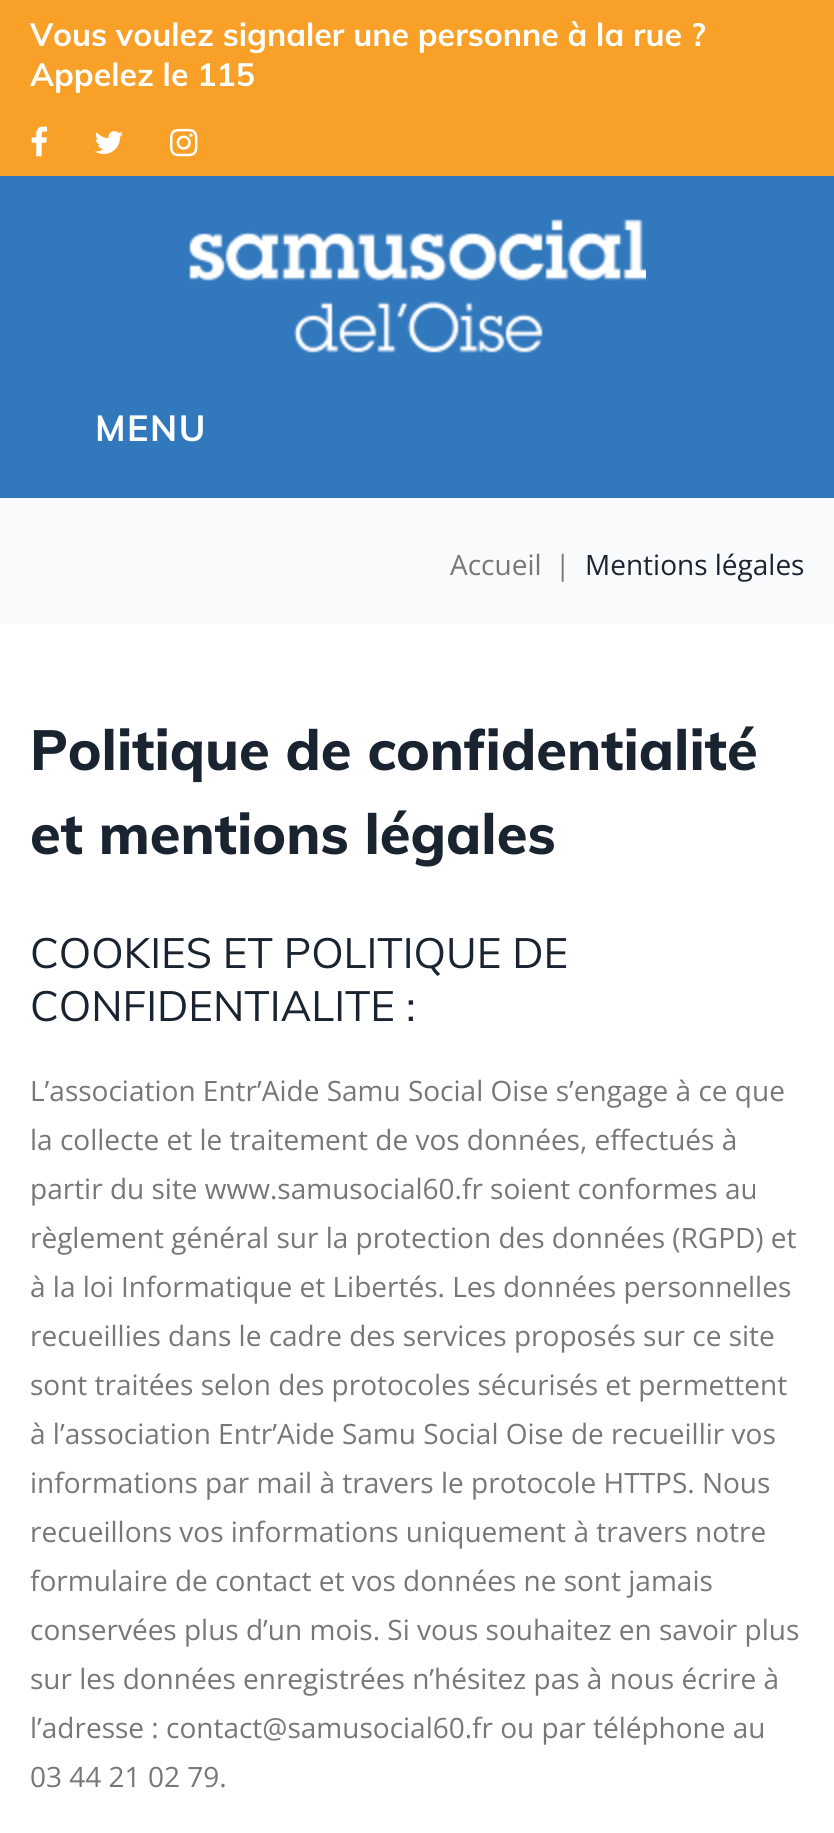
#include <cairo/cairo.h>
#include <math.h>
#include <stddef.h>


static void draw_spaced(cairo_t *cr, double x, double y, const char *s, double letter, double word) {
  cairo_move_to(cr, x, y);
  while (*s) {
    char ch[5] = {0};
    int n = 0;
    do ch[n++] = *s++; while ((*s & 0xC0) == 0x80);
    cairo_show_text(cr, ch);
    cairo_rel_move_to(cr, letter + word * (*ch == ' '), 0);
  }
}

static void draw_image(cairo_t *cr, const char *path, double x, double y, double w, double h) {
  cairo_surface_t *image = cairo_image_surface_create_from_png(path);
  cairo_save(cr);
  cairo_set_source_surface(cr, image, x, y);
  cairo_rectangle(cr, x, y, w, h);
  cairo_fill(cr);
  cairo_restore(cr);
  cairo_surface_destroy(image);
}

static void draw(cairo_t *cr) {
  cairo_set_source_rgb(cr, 1, 1, 1);
  cairo_paint(cr);
  cairo_set_source_rgb(cr, 49 / 255.0, 120 / 255.0, 189 / 255.0);
  cairo_rectangle(cr, 0, 176, 834, 322);
  cairo_fill(cr);
  cairo_set_source_rgb(cr, 249 / 255.0, 160 / 255.0, 41 / 255.0);
  cairo_rectangle(cr, 0, 0, 834, 176);
  cairo_fill(cr);
  draw_image(cr, "images/1.png", 31, 126, 17, 31);
  draw_image(cr, "images/2.png", 95, 131, 28, 23);
  draw_image(cr, "images/3.png", 170, 128, 28, 29);
  draw_image(cr, "images/4.png", 189, 219, 457, 134);
  cairo_set_source_rgb(cr, 248 / 255.0, 250 / 255.0, 251 / 255.0);
  cairo_rectangle(cr, 0, 498, 834, 126);
  cairo_fill(cr);
  cairo_select_font_face(cr, "Muli", CAIRO_FONT_SLANT_NORMAL, CAIRO_FONT_WEIGHT_BOLD);
  cairo_set_font_size(cr, 32);
  cairo_set_source_rgb(cr, 1, 1, 1);
  cairo_move_to(cr, 30, 46);
  cairo_show_text(cr, "Vous voulez signaler une personne à la rue ?");
  cairo_move_to(cr, 30, 86);
  cairo_show_text(cr, "Appelez le 115");
  cairo_set_font_size(cr, 36);
  draw_spaced(cr, 95, 441, "MENU", 1.5, 0);
  cairo_select_font_face(cr, "Open Sans", CAIRO_FONT_SLANT_NORMAL, CAIRO_FONT_WEIGHT_NORMAL);
  cairo_set_font_size(cr, 28);
  cairo_set_source_rgb(cr, 119 / 255.0, 119 / 255.0, 119 / 255.0);
  cairo_move_to(cr, 450, 575);
  cairo_show_text(cr, "Accueil");
  cairo_move_to(cr, 555, 575);
  cairo_show_text(cr, "|");
  cairo_set_source_rgb(cr, 26 / 255.0, 36 / 255.0, 49 / 255.0);
  cairo_move_to(cr, 585, 575);
  cairo_show_text(cr, "Mentions légales");
  cairo_select_font_face(cr, "Muli ExtraBold", CAIRO_FONT_SLANT_NORMAL, CAIRO_FONT_WEIGHT_NORMAL);
  cairo_set_font_size(cr, 56);
  cairo_move_to(cr, 30, 770);
  cairo_show_text(cr, "Politique de confidentialité");
  cairo_move_to(cr, 30, 854);
  cairo_show_text(cr, "et mentions légales");
  cairo_select_font_face(cr, "Muli", CAIRO_FONT_SLANT_NORMAL, CAIRO_FONT_WEIGHT_NORMAL);
  cairo_set_font_size(cr, 42);
  cairo_move_to(cr, 30, 968);
  cairo_show_text(cr, "COOKIES ET POLITIQUE DE");
  cairo_move_to(cr, 30, 1021);
  cairo_show_text(cr, "CONFIDENTIALITE :");
  cairo_select_font_face(cr, "Open Sans", CAIRO_FONT_SLANT_NORMAL, CAIRO_FONT_WEIGHT_NORMAL);
  cairo_set_font_size(cr, 28);
  cairo_set_source_rgb(cr, 119 / 255.0, 119 / 255.0, 119 / 255.0);
  cairo_move_to(cr, 30, 1101);
  cairo_show_text(cr, "L’association Entr’Aide Samu Social Oise s’engage à ce que");
  cairo_move_to(cr, 30, 1150);
  cairo_show_text(cr, "la collecte et le traitement de vos données, effectués à");
  cairo_move_to(cr, 30, 1199);
  cairo_show_text(cr, "partir du site www.samusocial60.fr soient conformes au");
  cairo_move_to(cr, 30, 1248);
  cairo_show_text(cr, "règlement général sur la protection des données (RGPD) et");
  cairo_move_to(cr, 30, 1297);
  cairo_show_text(cr, "à la loi Informatique et Libertés. Les données personnelles");
  cairo_move_to(cr, 30, 1346);
  cairo_show_text(cr, "recueillies dans le cadre des services proposés sur ce site");
  cairo_move_to(cr, 30, 1395);
  cairo_show_text(cr, "sont traitées selon des protocoles sécurisés et permettent");
  cairo_move_to(cr, 30, 1444);
  cairo_show_text(cr, "à l’association Entr’Aide Samu Social Oise de recueillir vos");
  cairo_move_to(cr, 30, 1493);
  cairo_show_text(cr, "informations par mail à travers le protocole HTTPS. Nous");
  cairo_move_to(cr, 30, 1542);
  cairo_show_text(cr, "recueillons vos informations uniquement à travers notre");
  cairo_move_to(cr, 30, 1591);
  cairo_show_text(cr, "formulaire de contact et vos données ne sont jamais");
  cairo_move_to(cr, 30, 1640);
  cairo_show_text(cr, "conservées plus d’un mois. Si vous souhaitez en savoir plus");
  cairo_move_to(cr, 30, 1689);
  cairo_show_text(cr, "sur les données enregistrées n’hésitez pas à nous écrire à");
  cairo_move_to(cr, 30, 1738);
  cairo_show_text(cr, "l’adresse : contact@samusocial60.fr ou par téléphone au");
  cairo_move_to(cr, 30, 1787);
  cairo_show_text(cr, "03 44 21 02 79.");
}

int main(void) {
  cairo_surface_t *surface = cairo_image_surface_create(CAIRO_FORMAT_RGB24, 834, 1833);
  cairo_t *cr = cairo_create(surface);
  cairo_font_options_t *options = cairo_font_options_create();
  cairo_font_options_set_hint_metrics(options, CAIRO_HINT_METRICS_OFF);
  cairo_font_options_set_hint_style(options, CAIRO_HINT_STYLE_NONE);
  cairo_set_font_options(cr, options);
  cairo_set_miter_limit(cr, 4);
  draw(cr);
  cairo_surface_write_to_png(surface, "out.png");
  cairo_font_options_destroy(options);
  cairo_destroy(cr);
  cairo_surface_destroy(surface);
  return 0;
}
